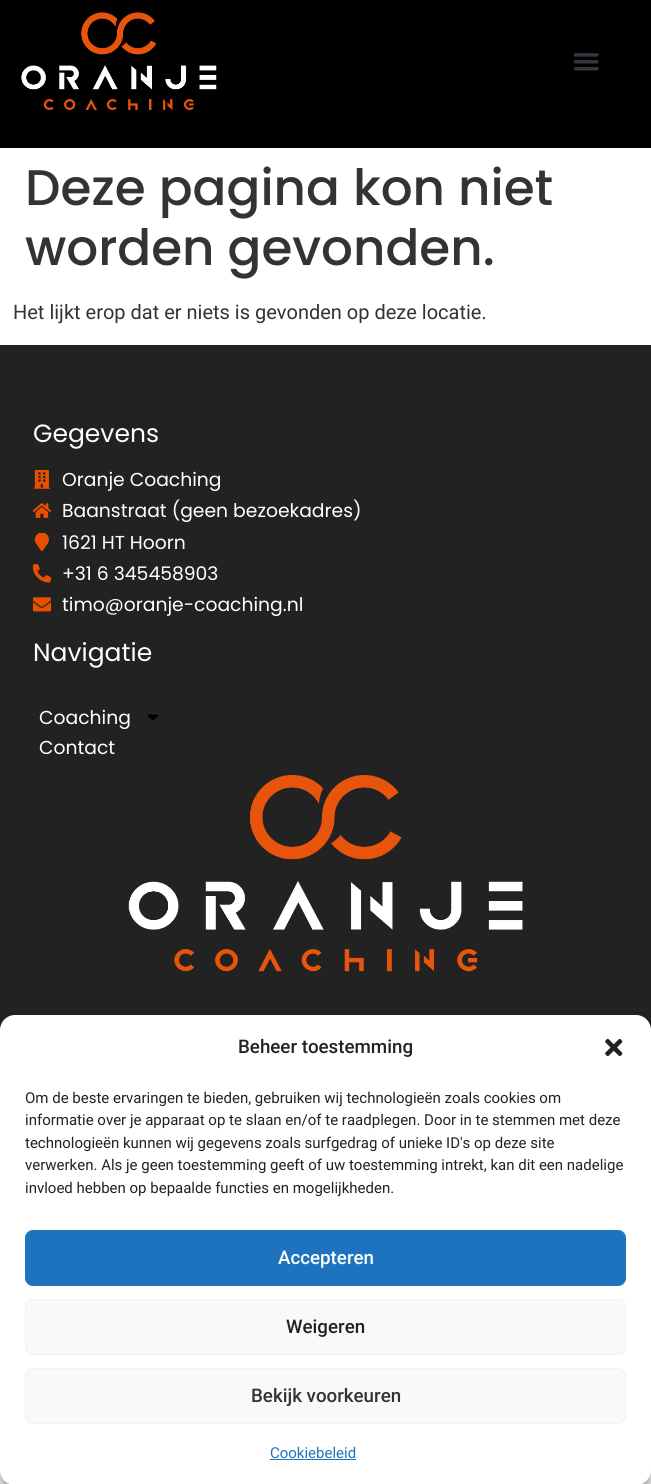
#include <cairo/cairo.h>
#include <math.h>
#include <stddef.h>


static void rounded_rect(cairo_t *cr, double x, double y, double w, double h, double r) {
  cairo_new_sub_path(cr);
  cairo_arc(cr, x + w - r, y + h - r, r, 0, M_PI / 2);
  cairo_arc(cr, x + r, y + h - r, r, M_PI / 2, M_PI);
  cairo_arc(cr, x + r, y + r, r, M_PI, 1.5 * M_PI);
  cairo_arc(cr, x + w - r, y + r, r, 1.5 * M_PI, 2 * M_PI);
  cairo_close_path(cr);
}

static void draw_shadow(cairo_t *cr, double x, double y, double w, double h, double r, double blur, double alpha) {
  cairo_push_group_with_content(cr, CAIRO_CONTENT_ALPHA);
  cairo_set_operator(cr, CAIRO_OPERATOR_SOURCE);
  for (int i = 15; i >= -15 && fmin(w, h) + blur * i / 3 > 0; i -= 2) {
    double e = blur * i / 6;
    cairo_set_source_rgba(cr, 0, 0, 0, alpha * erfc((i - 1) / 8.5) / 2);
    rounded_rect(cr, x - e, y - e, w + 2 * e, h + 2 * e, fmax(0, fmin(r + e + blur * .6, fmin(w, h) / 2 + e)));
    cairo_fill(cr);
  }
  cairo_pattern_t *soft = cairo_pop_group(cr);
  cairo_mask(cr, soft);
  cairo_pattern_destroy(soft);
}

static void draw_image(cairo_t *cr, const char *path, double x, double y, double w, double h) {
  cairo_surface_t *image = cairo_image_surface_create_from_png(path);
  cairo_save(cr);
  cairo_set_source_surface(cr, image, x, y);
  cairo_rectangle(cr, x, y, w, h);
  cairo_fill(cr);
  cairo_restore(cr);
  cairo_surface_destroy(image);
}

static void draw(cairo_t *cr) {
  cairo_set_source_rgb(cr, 1, 1, 1);
  cairo_paint(cr);
  cairo_set_source_rgb(cr, 0, 0, 0);
  cairo_rectangle(cr, 0, 0, 651, 148);
  cairo_fill(cr);
  draw_image(cr, "images/1.png", 21, 12, 196, 98);
  draw_image(cr, "images/2.png", 573, 53, 26, 18);
  cairo_set_source_rgb(cr, 34 / 255.0, 34 / 255.0, 34 / 255.0);
  cairo_rectangle(cr, 0, 345, 651, 685);
  cairo_fill(cr);
  draw_image(cr, "images/3.png", 33, 470, 18, 19);
  draw_image(cr, "images/4.png", 33, 503, 18, 15);
  draw_image(cr, "images/5.png", 34, 533, 15, 18);
  draw_image(cr, "images/6.png", 33, 564, 18, 19);
  draw_image(cr, "images/7.png", 33, 597, 18, 15);
  draw_image(cr, "images/8.png", 147, 714, 12, 7);
  draw_image(cr, "images/9.png", 128, 775, 395, 197);
  cairo_set_source_rgb(cr, 0, 0, 0);
  draw_shadow(cr, 0, 1023, 651, 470, 15, 4, 0.23);
  draw_shadow(cr, 0, 1028, 651, 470, 15, 12.5, 0.19);
  cairo_set_source_rgb(cr, 1, 1, 1);
  rounded_rect(cr, 0, 1015, 651, 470, 15);
  cairo_fill(cr);
  draw_image(cr, "images/10.png", 605, 1038, 18, 19);
  cairo_set_source_rgb(cr, 30 / 255.0, 115 / 255.0, 190 / 255.0);
  rounded_rect(cr, 25.5, 1230.5, 600, 55, 7.5);
  cairo_fill_preserve(cr);
  cairo_set_line_width(cr, 1);
  cairo_stroke(cr);
  cairo_set_source_rgb(cr, 249 / 255.0, 249 / 255.0, 249 / 255.0);
  rounded_rect(cr, 25.5, 1299.5, 600, 55, 7.5);
  cairo_fill_preserve(cr);
  cairo_set_source_rgb(cr, 242 / 255.0, 242 / 255.0, 242 / 255.0);
  cairo_stroke(cr);
  cairo_set_source_rgb(cr, 249 / 255.0, 249 / 255.0, 249 / 255.0);
  rounded_rect(cr, 25.5, 1368.5, 600, 55, 7.5);
  cairo_fill_preserve(cr);
  cairo_set_source_rgb(cr, 242 / 255.0, 242 / 255.0, 242 / 255.0);
  cairo_stroke(cr);
  cairo_set_source_rgb(cr, 30 / 255.0, 115 / 255.0, 190 / 255.0);
  cairo_rectangle(cr, 270, 1459, 86, 1);
  cairo_fill(cr);
  cairo_select_font_face(cr, "Poppins Medium", CAIRO_FONT_SLANT_NORMAL, CAIRO_FONT_WEIGHT_NORMAL);
  cairo_set_font_size(cr, 50);
  cairo_set_source_rgb(cr, 51 / 255.0, 51 / 255.0, 51 / 255.0);
  cairo_move_to(cr, 25, 205);
  cairo_show_text(cr, "Deze pagina kon niet");
  cairo_move_to(cr, 25, 265);
  cairo_show_text(cr, "worden gevonden.");
  cairo_select_font_face(cr, "Roboto", CAIRO_FONT_SLANT_NORMAL, CAIRO_FONT_WEIGHT_NORMAL);
  cairo_set_font_size(cr, 20);
  cairo_move_to(cr, 13, 319);
  cairo_show_text(cr, "Het lijkt erop dat er niets is gevonden op deze locatie.");
  cairo_select_font_face(cr, "Poppins", CAIRO_FONT_SLANT_NORMAL, CAIRO_FONT_WEIGHT_NORMAL);
  cairo_set_font_size(cr, 25);
  cairo_set_source_rgb(cr, 1, 1, 1);
  cairo_move_to(cr, 33, 442);
  cairo_show_text(cr, "Gegevens");
  cairo_set_font_size(cr, 18.75);
  cairo_move_to(cr, 62, 486);
  cairo_show_text(cr, "Oranje Coaching");
  cairo_move_to(cr, 62, 517);
  cairo_show_text(cr, "Baanstraat (geen bezoekadres)");
  cairo_move_to(cr, 62, 549);
  cairo_show_text(cr, "1621 HT Hoorn");
  cairo_move_to(cr, 62, 580);
  cairo_show_text(cr, "+31 6 345458903");
  cairo_move_to(cr, 62, 611);
  cairo_show_text(cr, "timo@oranje-coaching.nl");
  cairo_set_font_size(cr, 25);
  cairo_move_to(cr, 33, 661);
  cairo_show_text(cr, "Navigatie");
  cairo_set_font_size(cr, 18.75);
  cairo_move_to(cr, 39, 724);
  cairo_show_text(cr, "Coaching");
  cairo_move_to(cr, 39, 754);
  cairo_show_text(cr, "Contact");
  cairo_select_font_face(cr, "Roboto Medium", CAIRO_FONT_SLANT_NORMAL, CAIRO_FONT_WEIGHT_NORMAL);
  cairo_set_source_rgb(cr, 34 / 255.0, 34 / 255.0, 34 / 255.0);
  cairo_move_to(cr, 238, 1053);
  cairo_show_text(cr, "Beheer toestemming");
  cairo_select_font_face(cr, "Roboto", CAIRO_FONT_SLANT_NORMAL, CAIRO_FONT_WEIGHT_NORMAL);
  cairo_set_font_size(cr, 15);
  cairo_move_to(cr, 25, 1103);
  cairo_show_text(cr, "Om de beste ervaringen te bieden, gebruiken wij technologieën zoals cookies om");
  cairo_move_to(cr, 25, 1125);
  cairo_show_text(cr, "informatie over je apparaat op te slaan en/of te raadplegen. Door in te stemmen met deze");
  cairo_move_to(cr, 25, 1148);
  cairo_show_text(cr, "technologieën kunnen wij gegevens zoals surfgedrag of unieke ID's op deze site");
  cairo_move_to(cr, 25, 1170);
  cairo_show_text(cr, "verwerken. Als je geen toestemming geeft of uw toestemming intrekt, kan dit een nadelige");
  cairo_move_to(cr, 25, 1193);
  cairo_show_text(cr, "invloed hebben op bepaalde functies en mogelijkheden.");
  cairo_select_font_face(cr, "Roboto Medium", CAIRO_FONT_SLANT_NORMAL, CAIRO_FONT_WEIGHT_NORMAL);
  cairo_set_font_size(cr, 18.75);
  cairo_set_source_rgb(cr, 1, 1, 1);
  cairo_move_to(cr, 278, 1264);
  cairo_show_text(cr, "Accepteren");
  cairo_set_source_rgb(cr, 34 / 255.0, 34 / 255.0, 34 / 255.0);
  cairo_move_to(cr, 286, 1333);
  cairo_show_text(cr, "Weigeren");
  cairo_set_source_rgb(cr, 51 / 255.0, 51 / 255.0, 51 / 255.0);
  cairo_move_to(cr, 251, 1402);
  cairo_show_text(cr, "Bekijk voorkeuren");
  cairo_select_font_face(cr, "Roboto", CAIRO_FONT_SLANT_NORMAL, CAIRO_FONT_WEIGHT_NORMAL);
  cairo_set_font_size(cr, 15);
  cairo_set_source_rgb(cr, 30 / 255.0, 115 / 255.0, 190 / 255.0);
  cairo_move_to(cr, 270, 1458);
  cairo_show_text(cr, "Cookiebeleid");
}

int main(void) {
  cairo_surface_t *surface = cairo_image_surface_create(CAIRO_FORMAT_RGB24, 651, 1484);
  cairo_t *cr = cairo_create(surface);
  cairo_font_options_t *options = cairo_font_options_create();
  cairo_font_options_set_hint_metrics(options, CAIRO_HINT_METRICS_OFF);
  cairo_font_options_set_hint_style(options, CAIRO_HINT_STYLE_NONE);
  cairo_set_font_options(cr, options);
  cairo_set_miter_limit(cr, 4);
  draw(cr);
  cairo_surface_write_to_png(surface, "out.png");
  cairo_font_options_destroy(options);
  cairo_destroy(cr);
  cairo_surface_destroy(surface);
  return 0;
}
